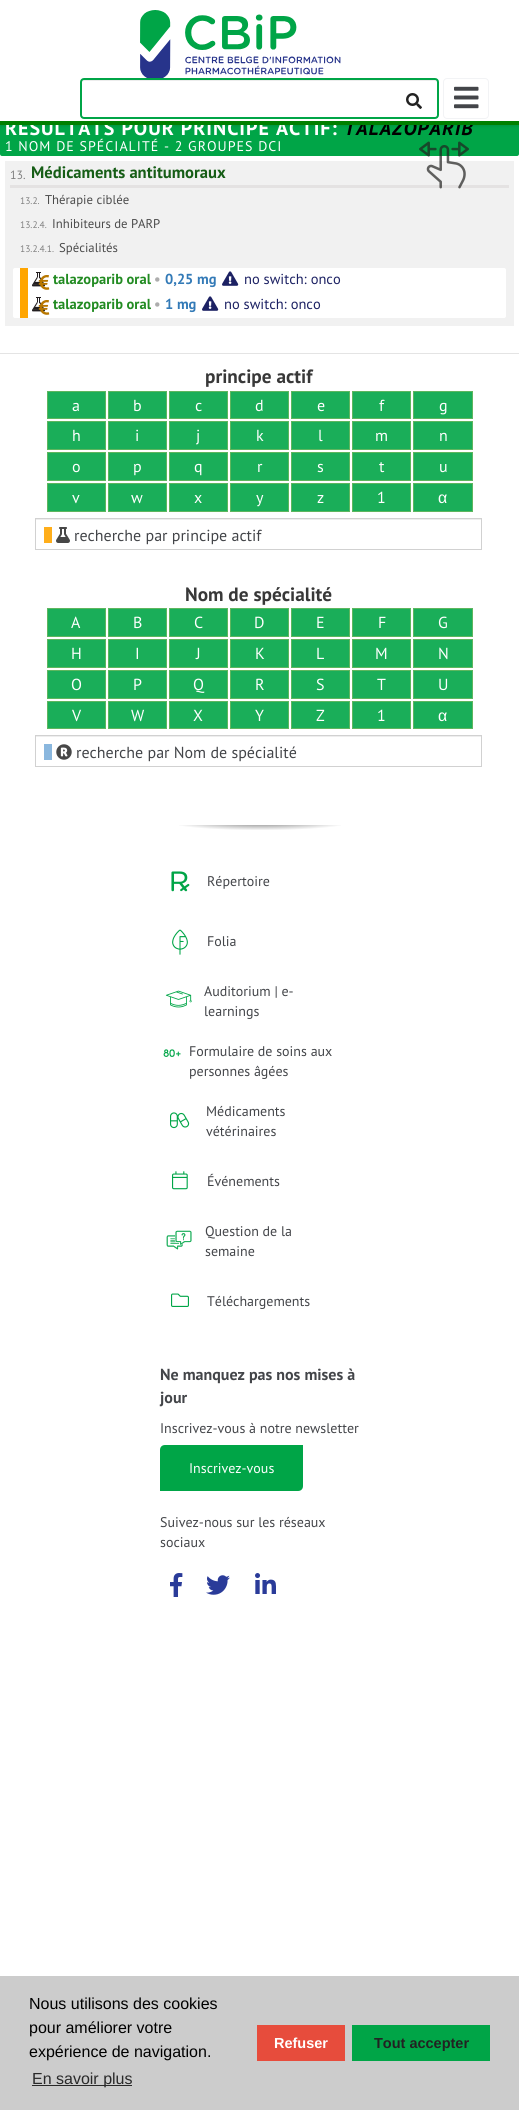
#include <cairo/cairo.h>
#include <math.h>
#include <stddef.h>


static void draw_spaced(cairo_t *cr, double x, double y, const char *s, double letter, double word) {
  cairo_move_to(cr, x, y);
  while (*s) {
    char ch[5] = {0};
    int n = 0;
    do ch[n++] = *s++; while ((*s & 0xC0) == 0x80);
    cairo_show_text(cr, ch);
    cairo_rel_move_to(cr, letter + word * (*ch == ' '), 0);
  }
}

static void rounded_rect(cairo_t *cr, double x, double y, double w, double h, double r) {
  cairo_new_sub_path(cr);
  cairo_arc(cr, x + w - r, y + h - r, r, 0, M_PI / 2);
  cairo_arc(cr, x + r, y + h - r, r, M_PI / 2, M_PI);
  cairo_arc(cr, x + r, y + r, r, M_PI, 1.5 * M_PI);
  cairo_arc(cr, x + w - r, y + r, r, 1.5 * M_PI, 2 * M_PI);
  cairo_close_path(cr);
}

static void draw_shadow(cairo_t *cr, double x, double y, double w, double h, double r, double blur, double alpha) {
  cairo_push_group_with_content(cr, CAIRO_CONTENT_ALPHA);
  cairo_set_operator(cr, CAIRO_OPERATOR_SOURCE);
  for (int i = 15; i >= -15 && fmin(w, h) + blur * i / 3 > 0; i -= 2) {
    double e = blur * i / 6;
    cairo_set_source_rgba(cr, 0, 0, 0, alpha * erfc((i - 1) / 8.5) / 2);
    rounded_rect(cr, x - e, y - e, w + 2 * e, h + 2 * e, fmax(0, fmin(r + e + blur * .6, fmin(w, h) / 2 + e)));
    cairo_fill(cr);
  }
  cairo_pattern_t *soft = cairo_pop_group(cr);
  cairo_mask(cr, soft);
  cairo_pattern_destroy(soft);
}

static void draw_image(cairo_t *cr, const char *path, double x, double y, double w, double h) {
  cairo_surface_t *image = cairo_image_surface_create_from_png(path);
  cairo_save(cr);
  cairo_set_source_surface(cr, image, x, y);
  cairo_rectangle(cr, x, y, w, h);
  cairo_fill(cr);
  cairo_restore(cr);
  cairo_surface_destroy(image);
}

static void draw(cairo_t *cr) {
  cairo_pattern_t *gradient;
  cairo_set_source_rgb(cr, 1, 1, 1);
  cairo_paint(cr);
  cairo_set_source_rgb(cr, 0, 165 / 255.0, 71 / 255.0);
  rounded_rect(cr, 0, 115, 519, 41, 2);
  cairo_fill(cr);
  cairo_set_source_rgb(cr, 0, 0, 0);
  draw_shadow(cr, 0, 1, 519, 125, 0, 1.5, 0.12);
  cairo_set_source_rgb(cr, 241 / 255.0, 241 / 255.0, 241 / 255.0);
  cairo_rectangle(cr, 5, 161, 509, 165);
  cairo_fill(cr);
  cairo_set_source_rgb(cr, 228 / 255.0, 226 / 255.0, 226 / 255.0);
  cairo_rectangle(cr, 10, 185, 499, 3);
  cairo_fill(cr);
  cairo_set_source_rgb(cr, 1, 1, 1);
  rounded_rect(cr, 9, 264, 501, 58, 6);
  cairo_fill_preserve(cr);
  cairo_set_source_rgb(cr, 241 / 255.0, 241 / 255.0, 241 / 255.0);
  cairo_set_line_width(cr, 8);
  cairo_stroke(cr);
  cairo_set_source_rgb(cr, 1, 165 / 255.0, 0);
  cairo_rectangle(cr, 20, 268, 8, 50);
  cairo_fill(cr);
  draw_image(cr, "images/4.png", 32, 272, 18, 18);
  draw_image(cr, "images/5.png", 222, 271, 17, 15);
  draw_image(cr, "images/4.png", 32, 297, 18, 18);
  draw_image(cr, "images/5.png", 202, 296, 17, 15);
  draw_image(cr, "images/6.png", 419, 141, 50, 48);
  cairo_set_source_rgb(cr, 228 / 255.0, 228 / 255.0, 228 / 255.0);
  cairo_rectangle(cr, 0, 353, 519, 1);
  cairo_fill(cr);
  cairo_set_source_rgb(cr, 26 / 255.0, 174 / 255.0, 89 / 255.0);
  cairo_rectangle(cr, 47.5, 391.5, 58, 27);
  cairo_fill_preserve(cr);
  cairo_set_source_rgb(cr, 94 / 255.0, 182 / 255.0, 94 / 255.0);
  cairo_set_line_width(cr, 1);
  cairo_stroke(cr);
  cairo_set_source_rgb(cr, 26 / 255.0, 174 / 255.0, 89 / 255.0);
  cairo_rectangle(cr, 108.5, 391.5, 58, 27);
  cairo_fill_preserve(cr);
  cairo_set_source_rgb(cr, 94 / 255.0, 182 / 255.0, 94 / 255.0);
  cairo_stroke(cr);
  cairo_set_source_rgb(cr, 26 / 255.0, 174 / 255.0, 89 / 255.0);
  cairo_rectangle(cr, 169.5, 391.5, 58, 27);
  cairo_fill_preserve(cr);
  cairo_set_source_rgb(cr, 94 / 255.0, 182 / 255.0, 94 / 255.0);
  cairo_stroke(cr);
  cairo_set_source_rgb(cr, 26 / 255.0, 174 / 255.0, 89 / 255.0);
  cairo_rectangle(cr, 230.5, 391.5, 58, 27);
  cairo_fill_preserve(cr);
  cairo_set_source_rgb(cr, 94 / 255.0, 182 / 255.0, 94 / 255.0);
  cairo_stroke(cr);
  cairo_set_source_rgb(cr, 26 / 255.0, 174 / 255.0, 89 / 255.0);
  cairo_rectangle(cr, 291.5, 391.5, 58, 27);
  cairo_fill_preserve(cr);
  cairo_set_source_rgb(cr, 94 / 255.0, 182 / 255.0, 94 / 255.0);
  cairo_stroke(cr);
  cairo_set_source_rgb(cr, 26 / 255.0, 174 / 255.0, 89 / 255.0);
  cairo_rectangle(cr, 352.5, 391.5, 58, 27);
  cairo_fill_preserve(cr);
  cairo_set_source_rgb(cr, 94 / 255.0, 182 / 255.0, 94 / 255.0);
  cairo_stroke(cr);
  cairo_set_source_rgb(cr, 26 / 255.0, 174 / 255.0, 89 / 255.0);
  cairo_rectangle(cr, 413.5, 391.5, 59, 27);
  cairo_fill_preserve(cr);
  cairo_set_source_rgb(cr, 94 / 255.0, 182 / 255.0, 94 / 255.0);
  cairo_stroke(cr);
  cairo_set_source_rgb(cr, 26 / 255.0, 174 / 255.0, 89 / 255.0);
  cairo_rectangle(cr, 47.5, 421.5, 58, 28);
  cairo_fill_preserve(cr);
  cairo_set_source_rgb(cr, 94 / 255.0, 182 / 255.0, 94 / 255.0);
  cairo_stroke(cr);
  cairo_set_source_rgb(cr, 26 / 255.0, 174 / 255.0, 89 / 255.0);
  cairo_rectangle(cr, 108.5, 421.5, 58, 28);
  cairo_fill_preserve(cr);
  cairo_set_source_rgb(cr, 94 / 255.0, 182 / 255.0, 94 / 255.0);
  cairo_stroke(cr);
  cairo_set_source_rgb(cr, 26 / 255.0, 174 / 255.0, 89 / 255.0);
  cairo_rectangle(cr, 169.5, 421.5, 58, 28);
  cairo_fill_preserve(cr);
  cairo_set_source_rgb(cr, 94 / 255.0, 182 / 255.0, 94 / 255.0);
  cairo_stroke(cr);
  cairo_set_source_rgb(cr, 26 / 255.0, 174 / 255.0, 89 / 255.0);
  cairo_rectangle(cr, 230.5, 421.5, 58, 28);
  cairo_fill_preserve(cr);
  cairo_set_source_rgb(cr, 94 / 255.0, 182 / 255.0, 94 / 255.0);
  cairo_stroke(cr);
  cairo_set_source_rgb(cr, 26 / 255.0, 174 / 255.0, 89 / 255.0);
  cairo_rectangle(cr, 291.5, 421.5, 58, 28);
  cairo_fill_preserve(cr);
  cairo_set_source_rgb(cr, 94 / 255.0, 182 / 255.0, 94 / 255.0);
  cairo_stroke(cr);
  cairo_set_source_rgb(cr, 26 / 255.0, 174 / 255.0, 89 / 255.0);
  cairo_rectangle(cr, 352.5, 421.5, 58, 28);
  cairo_fill_preserve(cr);
  cairo_set_source_rgb(cr, 94 / 255.0, 182 / 255.0, 94 / 255.0);
  cairo_stroke(cr);
  cairo_set_source_rgb(cr, 26 / 255.0, 174 / 255.0, 89 / 255.0);
  cairo_rectangle(cr, 413.5, 421.5, 59, 28);
  cairo_fill_preserve(cr);
  cairo_set_source_rgb(cr, 94 / 255.0, 182 / 255.0, 94 / 255.0);
  cairo_stroke(cr);
  cairo_set_source_rgb(cr, 26 / 255.0, 174 / 255.0, 89 / 255.0);
  cairo_rectangle(cr, 47.5, 452.5, 58, 28);
  cairo_fill_preserve(cr);
  cairo_set_source_rgb(cr, 94 / 255.0, 182 / 255.0, 94 / 255.0);
  cairo_stroke(cr);
  cairo_set_source_rgb(cr, 26 / 255.0, 174 / 255.0, 89 / 255.0);
  cairo_rectangle(cr, 108.5, 452.5, 58, 28);
  cairo_fill_preserve(cr);
  cairo_set_source_rgb(cr, 94 / 255.0, 182 / 255.0, 94 / 255.0);
  cairo_stroke(cr);
  cairo_set_source_rgb(cr, 26 / 255.0, 174 / 255.0, 89 / 255.0);
  cairo_rectangle(cr, 169.5, 452.5, 58, 28);
  cairo_fill_preserve(cr);
  cairo_set_source_rgb(cr, 94 / 255.0, 182 / 255.0, 94 / 255.0);
  cairo_stroke(cr);
  cairo_set_source_rgb(cr, 26 / 255.0, 174 / 255.0, 89 / 255.0);
  cairo_rectangle(cr, 230.5, 452.5, 58, 28);
  cairo_fill_preserve(cr);
  cairo_set_source_rgb(cr, 94 / 255.0, 182 / 255.0, 94 / 255.0);
  cairo_stroke(cr);
  cairo_set_source_rgb(cr, 26 / 255.0, 174 / 255.0, 89 / 255.0);
  cairo_rectangle(cr, 291.5, 452.5, 58, 28);
  cairo_fill_preserve(cr);
  cairo_set_source_rgb(cr, 94 / 255.0, 182 / 255.0, 94 / 255.0);
  cairo_stroke(cr);
  cairo_set_source_rgb(cr, 26 / 255.0, 174 / 255.0, 89 / 255.0);
  cairo_rectangle(cr, 352.5, 452.5, 58, 28);
  cairo_fill_preserve(cr);
  cairo_set_source_rgb(cr, 94 / 255.0, 182 / 255.0, 94 / 255.0);
  cairo_stroke(cr);
  cairo_set_source_rgb(cr, 26 / 255.0, 174 / 255.0, 89 / 255.0);
  cairo_rectangle(cr, 413.5, 452.5, 59, 28);
  cairo_fill_preserve(cr);
  cairo_set_source_rgb(cr, 94 / 255.0, 182 / 255.0, 94 / 255.0);
  cairo_stroke(cr);
  cairo_set_source_rgb(cr, 26 / 255.0, 174 / 255.0, 89 / 255.0);
  cairo_rectangle(cr, 47.5, 483.5, 58, 28);
  cairo_fill_preserve(cr);
  cairo_set_source_rgb(cr, 94 / 255.0, 182 / 255.0, 94 / 255.0);
  cairo_stroke(cr);
  cairo_set_source_rgb(cr, 26 / 255.0, 174 / 255.0, 89 / 255.0);
  cairo_rectangle(cr, 108.5, 483.5, 58, 28);
  cairo_fill_preserve(cr);
  cairo_set_source_rgb(cr, 94 / 255.0, 182 / 255.0, 94 / 255.0);
  cairo_stroke(cr);
  cairo_set_source_rgb(cr, 26 / 255.0, 174 / 255.0, 89 / 255.0);
  cairo_rectangle(cr, 169.5, 483.5, 58, 28);
  cairo_fill_preserve(cr);
  cairo_set_source_rgb(cr, 94 / 255.0, 182 / 255.0, 94 / 255.0);
  cairo_stroke(cr);
  cairo_set_source_rgb(cr, 26 / 255.0, 174 / 255.0, 89 / 255.0);
  cairo_rectangle(cr, 230.5, 483.5, 58, 28);
  cairo_fill_preserve(cr);
  cairo_set_source_rgb(cr, 94 / 255.0, 182 / 255.0, 94 / 255.0);
  cairo_stroke(cr);
  cairo_set_source_rgb(cr, 26 / 255.0, 174 / 255.0, 89 / 255.0);
  cairo_rectangle(cr, 291.5, 483.5, 58, 28);
  cairo_fill_preserve(cr);
  cairo_set_source_rgb(cr, 94 / 255.0, 182 / 255.0, 94 / 255.0);
  cairo_stroke(cr);
  cairo_set_source_rgb(cr, 26 / 255.0, 174 / 255.0, 89 / 255.0);
  cairo_rectangle(cr, 352.5, 483.5, 58, 28);
  cairo_fill_preserve(cr);
  cairo_set_source_rgb(cr, 94 / 255.0, 182 / 255.0, 94 / 255.0);
  cairo_stroke(cr);
  cairo_set_source_rgb(cr, 26 / 255.0, 174 / 255.0, 89 / 255.0);
  cairo_rectangle(cr, 413.5, 483.5, 59, 28);
  cairo_fill_preserve(cr);
  cairo_set_source_rgb(cr, 94 / 255.0, 182 / 255.0, 94 / 255.0);
  cairo_stroke(cr);
  cairo_set_source_rgb(cr, 238 / 255.0, 238 / 255.0, 238 / 255.0);
  cairo_rectangle(cr, 36, 519, 445, 1);
  cairo_fill(cr);
  cairo_rectangle(cr, 35.5, 518.5, 446, 31);
  cairo_set_source_rgb(cr, 209 / 255.0, 209 / 255.0, 209 / 255.0);
  cairo_stroke(cr);
  cairo_set_source_rgb(cr, 1, 174 / 255.0, 26 / 255.0);
  cairo_rectangle(cr, 44, 527, 8, 16);
  cairo_fill(cr);
  draw_image(cr, "images/7.png", 56, 527, 14, 16);
  cairo_set_source_rgb(cr, 26 / 255.0, 174 / 255.0, 89 / 255.0);
  cairo_rectangle(cr, 47.5, 608.5, 58, 28);
  cairo_fill_preserve(cr);
  cairo_set_source_rgb(cr, 94 / 255.0, 182 / 255.0, 94 / 255.0);
  cairo_stroke(cr);
  cairo_set_source_rgb(cr, 26 / 255.0, 174 / 255.0, 89 / 255.0);
  cairo_rectangle(cr, 108.5, 608.5, 58, 28);
  cairo_fill_preserve(cr);
  cairo_set_source_rgb(cr, 94 / 255.0, 182 / 255.0, 94 / 255.0);
  cairo_stroke(cr);
  cairo_set_source_rgb(cr, 26 / 255.0, 174 / 255.0, 89 / 255.0);
  cairo_rectangle(cr, 169.5, 608.5, 58, 28);
  cairo_fill_preserve(cr);
  cairo_set_source_rgb(cr, 94 / 255.0, 182 / 255.0, 94 / 255.0);
  cairo_stroke(cr);
  cairo_set_source_rgb(cr, 26 / 255.0, 174 / 255.0, 89 / 255.0);
  cairo_rectangle(cr, 230.5, 608.5, 58, 28);
  cairo_fill_preserve(cr);
  cairo_set_source_rgb(cr, 94 / 255.0, 182 / 255.0, 94 / 255.0);
  cairo_stroke(cr);
  cairo_set_source_rgb(cr, 26 / 255.0, 174 / 255.0, 89 / 255.0);
  cairo_rectangle(cr, 291.5, 608.5, 58, 28);
  cairo_fill_preserve(cr);
  cairo_set_source_rgb(cr, 94 / 255.0, 182 / 255.0, 94 / 255.0);
  cairo_stroke(cr);
  cairo_set_source_rgb(cr, 26 / 255.0, 174 / 255.0, 89 / 255.0);
  cairo_rectangle(cr, 352.5, 608.5, 58, 28);
  cairo_fill_preserve(cr);
  cairo_set_source_rgb(cr, 94 / 255.0, 182 / 255.0, 94 / 255.0);
  cairo_stroke(cr);
  cairo_set_source_rgb(cr, 26 / 255.0, 174 / 255.0, 89 / 255.0);
  cairo_rectangle(cr, 413.5, 608.5, 59, 28);
  cairo_fill_preserve(cr);
  cairo_set_source_rgb(cr, 94 / 255.0, 182 / 255.0, 94 / 255.0);
  cairo_stroke(cr);
  cairo_set_source_rgb(cr, 26 / 255.0, 174 / 255.0, 89 / 255.0);
  cairo_rectangle(cr, 47.5, 639.5, 58, 28);
  cairo_fill_preserve(cr);
  cairo_set_source_rgb(cr, 94 / 255.0, 182 / 255.0, 94 / 255.0);
  cairo_stroke(cr);
  cairo_set_source_rgb(cr, 26 / 255.0, 174 / 255.0, 89 / 255.0);
  cairo_rectangle(cr, 108.5, 639.5, 58, 28);
  cairo_fill_preserve(cr);
  cairo_set_source_rgb(cr, 94 / 255.0, 182 / 255.0, 94 / 255.0);
  cairo_stroke(cr);
  cairo_set_source_rgb(cr, 26 / 255.0, 174 / 255.0, 89 / 255.0);
  cairo_rectangle(cr, 169.5, 639.5, 58, 28);
  cairo_fill_preserve(cr);
  cairo_set_source_rgb(cr, 94 / 255.0, 182 / 255.0, 94 / 255.0);
  cairo_stroke(cr);
  cairo_set_source_rgb(cr, 26 / 255.0, 174 / 255.0, 89 / 255.0);
  cairo_rectangle(cr, 230.5, 639.5, 58, 28);
  cairo_fill_preserve(cr);
  cairo_set_source_rgb(cr, 94 / 255.0, 182 / 255.0, 94 / 255.0);
  cairo_stroke(cr);
  cairo_set_source_rgb(cr, 26 / 255.0, 174 / 255.0, 89 / 255.0);
  cairo_rectangle(cr, 291.5, 639.5, 58, 28);
  cairo_fill_preserve(cr);
  cairo_set_source_rgb(cr, 94 / 255.0, 182 / 255.0, 94 / 255.0);
  cairo_stroke(cr);
  cairo_set_source_rgb(cr, 26 / 255.0, 174 / 255.0, 89 / 255.0);
  cairo_rectangle(cr, 352.5, 639.5, 58, 28);
  cairo_fill_preserve(cr);
  cairo_set_source_rgb(cr, 94 / 255.0, 182 / 255.0, 94 / 255.0);
  cairo_stroke(cr);
  cairo_set_source_rgb(cr, 26 / 255.0, 174 / 255.0, 89 / 255.0);
  cairo_rectangle(cr, 413.5, 639.5, 59, 28);
  cairo_fill_preserve(cr);
  cairo_set_source_rgb(cr, 94 / 255.0, 182 / 255.0, 94 / 255.0);
  cairo_stroke(cr);
  cairo_set_source_rgb(cr, 26 / 255.0, 174 / 255.0, 89 / 255.0);
  cairo_rectangle(cr, 47.5, 670.5, 58, 28);
  cairo_fill_preserve(cr);
  cairo_set_source_rgb(cr, 94 / 255.0, 182 / 255.0, 94 / 255.0);
  cairo_stroke(cr);
  cairo_set_source_rgb(cr, 26 / 255.0, 174 / 255.0, 89 / 255.0);
  cairo_rectangle(cr, 108.5, 670.5, 58, 28);
  cairo_fill_preserve(cr);
  cairo_set_source_rgb(cr, 94 / 255.0, 182 / 255.0, 94 / 255.0);
  cairo_stroke(cr);
  cairo_set_source_rgb(cr, 26 / 255.0, 174 / 255.0, 89 / 255.0);
  cairo_rectangle(cr, 169.5, 670.5, 58, 28);
  cairo_fill_preserve(cr);
  cairo_set_source_rgb(cr, 94 / 255.0, 182 / 255.0, 94 / 255.0);
  cairo_stroke(cr);
  cairo_set_source_rgb(cr, 26 / 255.0, 174 / 255.0, 89 / 255.0);
  cairo_rectangle(cr, 230.5, 670.5, 58, 28);
  cairo_fill_preserve(cr);
  cairo_set_source_rgb(cr, 94 / 255.0, 182 / 255.0, 94 / 255.0);
  cairo_stroke(cr);
  cairo_set_source_rgb(cr, 26 / 255.0, 174 / 255.0, 89 / 255.0);
  cairo_rectangle(cr, 291.5, 670.5, 58, 28);
  cairo_fill_preserve(cr);
  cairo_set_source_rgb(cr, 94 / 255.0, 182 / 255.0, 94 / 255.0);
  cairo_stroke(cr);
  cairo_set_source_rgb(cr, 26 / 255.0, 174 / 255.0, 89 / 255.0);
  cairo_rectangle(cr, 352.5, 670.5, 58, 28);
  cairo_fill_preserve(cr);
  cairo_set_source_rgb(cr, 94 / 255.0, 182 / 255.0, 94 / 255.0);
  cairo_stroke(cr);
  cairo_set_source_rgb(cr, 26 / 255.0, 174 / 255.0, 89 / 255.0);
  cairo_rectangle(cr, 413.5, 670.5, 59, 28);
  cairo_fill_preserve(cr);
  cairo_set_source_rgb(cr, 94 / 255.0, 182 / 255.0, 94 / 255.0);
  cairo_stroke(cr);
  cairo_set_source_rgb(cr, 26 / 255.0, 174 / 255.0, 89 / 255.0);
  cairo_rectangle(cr, 47.5, 701.5, 58, 27);
  cairo_fill_preserve(cr);
  cairo_set_source_rgb(cr, 94 / 255.0, 182 / 255.0, 94 / 255.0);
  cairo_stroke(cr);
  cairo_set_source_rgb(cr, 26 / 255.0, 174 / 255.0, 89 / 255.0);
  cairo_rectangle(cr, 108.5, 701.5, 58, 27);
  cairo_fill_preserve(cr);
  cairo_set_source_rgb(cr, 94 / 255.0, 182 / 255.0, 94 / 255.0);
  cairo_stroke(cr);
  cairo_set_source_rgb(cr, 26 / 255.0, 174 / 255.0, 89 / 255.0);
  cairo_rectangle(cr, 169.5, 701.5, 58, 27);
  cairo_fill_preserve(cr);
  cairo_set_source_rgb(cr, 94 / 255.0, 182 / 255.0, 94 / 255.0);
  cairo_stroke(cr);
  cairo_set_source_rgb(cr, 26 / 255.0, 174 / 255.0, 89 / 255.0);
  cairo_rectangle(cr, 230.5, 701.5, 58, 27);
  cairo_fill_preserve(cr);
  cairo_set_source_rgb(cr, 94 / 255.0, 182 / 255.0, 94 / 255.0);
  cairo_stroke(cr);
  cairo_set_source_rgb(cr, 26 / 255.0, 174 / 255.0, 89 / 255.0);
  cairo_rectangle(cr, 291.5, 701.5, 58, 27);
  cairo_fill_preserve(cr);
  cairo_set_source_rgb(cr, 94 / 255.0, 182 / 255.0, 94 / 255.0);
  cairo_stroke(cr);
  cairo_set_source_rgb(cr, 26 / 255.0, 174 / 255.0, 89 / 255.0);
  cairo_rectangle(cr, 352.5, 701.5, 58, 27);
  cairo_fill_preserve(cr);
  cairo_set_source_rgb(cr, 94 / 255.0, 182 / 255.0, 94 / 255.0);
  cairo_stroke(cr);
  cairo_set_source_rgb(cr, 26 / 255.0, 174 / 255.0, 89 / 255.0);
  cairo_rectangle(cr, 413.5, 701.5, 59, 27);
  cairo_fill_preserve(cr);
  cairo_set_source_rgb(cr, 94 / 255.0, 182 / 255.0, 94 / 255.0);
  cairo_stroke(cr);
  cairo_set_source_rgb(cr, 238 / 255.0, 238 / 255.0, 238 / 255.0);
  cairo_rectangle(cr, 36, 736, 445, 1);
  cairo_fill(cr);
  cairo_rectangle(cr, 35.5, 735.5, 446, 31);
  cairo_set_source_rgb(cr, 209 / 255.0, 209 / 255.0, 209 / 255.0);
  cairo_stroke(cr);
  cairo_set_source_rgb(cr, 138 / 255.0, 183 / 255.0, 222 / 255.0);
  cairo_rectangle(cr, 44, 744, 8, 16);
  cairo_fill(cr);
  draw_image(cr, "images/8.png", 56, 744, 16, 16);
  gradient = cairo_pattern_create_radial(0, 0, 0, 0, 0, 1);
  cairo_pattern_set_matrix(gradient, &(cairo_matrix_t){1.0 / 141, 0, 0, 1.0 / 13, -1.0 * 260 / 141, -1.0 * 822 / 13});
  cairo_pattern_add_color_stop_rgba(gradient, 0, 128 / 255.0, 128 / 255.0, 128 / 255.0, 1);
  cairo_pattern_add_color_stop_rgba(gradient, 0.65, 1, 1, 1, 1);
  cairo_set_source(cr, gradient);
  cairo_pattern_destroy(gradient);
  cairo_rectangle(cr, 179, 825, 162, 5);
  cairo_fill(cr);
  draw_image(cr, "images/9.png", 171, 871, 19, 21);
  draw_image(cr, "images/10.png", 172, 929, 16, 26);
  draw_image(cr, "images/11.png", 165, 990, 27, 18);
  draw_image(cr, "images/12.png", 163, 1049, 18, 8);
  draw_image(cr, "images/13.png", 170, 1112, 20, 17);
  draw_image(cr, "images/14.png", 172, 1171, 16, 19);
  draw_image(cr, "images/15.png", 166, 1230, 26, 20);
  draw_image(cr, "images/16.png", 171, 1293, 18, 14);
  cairo_set_source_rgb(cr, 0, 165 / 255.0, 71 / 255.0);
  cairo_new_path(cr);
  cairo_move_to(cr, 165, 1445);
  cairo_line_to(cr, 303, 1445);
  cairo_line_to(cr, 303, 1486);
  cairo_curve_to(cr, 303, 1489, 301, 1491, 298, 1491);
  cairo_line_to(cr, 160, 1491);
  cairo_line_to(cr, 160, 1450);
  cairo_curve_to(cr, 160, 1447, 162, 1445, 165, 1445);
  cairo_close_path(cr);
  cairo_fill(cr);
  draw_image(cr, "images/17.png", 170, 1573, 13, 24);
  draw_image(cr, "images/18.png", 206, 1575, 24, 20);
  draw_image(cr, "images/19.png", 255, 1573, 21, 21);
  cairo_set_source_rgb(cr, 204 / 255.0, 204 / 255.0, 204 / 255.0);
  cairo_rectangle(cr, 0, 1976, 519, 134);
  cairo_fill(cr);
  cairo_set_source_rgb(cr, 41 / 255.0, 41 / 255.0, 41 / 255.0);
  cairo_rectangle(cr, 32, 2085, 100, 1);
  cairo_fill(cr);
  cairo_set_source_rgb(cr, 231 / 255.0, 76 / 255.0, 60 / 255.0);
  cairo_rectangle(cr, 257, 2025, 88, 36);
  cairo_fill(cr);
  cairo_set_source_rgb(cr, 0, 165 / 255.0, 71 / 255.0);
  cairo_rectangle(cr, 352, 2025, 138, 36);
  cairo_fill(cr);
  cairo_select_font_face(cr, "PT Sans", CAIRO_FONT_SLANT_NORMAL, CAIRO_FONT_WEIGHT_BOLD);
  cairo_set_font_size(cr, 20);
  cairo_set_source_rgb(cr, 1, 1, 1);
  draw_spaced(cr, 5, 135, "RÉSULTATS POUR PRINCIPE ACTIF:", 1, 0);
  cairo_select_font_face(cr, "PT Sans", CAIRO_FONT_SLANT_ITALIC, CAIRO_FONT_WEIGHT_BOLD);
  cairo_set_source_rgb(cr, 0, 0, 0);
  draw_spaced(cr, 344, 135, "TALAZOPARIB", 1, 0);
  cairo_set_source_rgb(cr, 1, 1, 1);
  cairo_rectangle(cr, 0, 0, 519, 121);
  cairo_fill(cr);
  rounded_rect(cr, 443.5, 78.5, 45, 40, 3.5);
  cairo_set_source_rgb(cr, 242 / 255.0, 243 / 255.0, 245 / 255.0);
  cairo_stroke(cr);
  draw_image(cr, "images/3.png", 454, 86, 25, 23);
  cairo_set_source_rgb(cr, 236 / 255.0, 236 / 255.0, 236 / 255.0);
  cairo_new_path(cr);
  cairo_move_to(cr, 84, 81);
  cairo_line_to(cr, 435, 81);
  cairo_curve_to(cr, 436, 81, 437, 82, 437, 83);
  cairo_curve_to(cr, 437, 82, 437, 80, 435, 80);
  cairo_line_to(cr, 84, 80);
  cairo_curve_to(cr, 82, 80, 82, 82, 82, 83);
  cairo_curve_to(cr, 82, 82, 83, 81, 84, 81);
  cairo_close_path(cr);
  cairo_fill(cr);
  rounded_rect(cr, 81, 79, 357, 39, 3);
  cairo_set_source_rgb(cr, 0, 165 / 255.0, 71 / 255.0);
  cairo_set_line_width(cr, 2);
  cairo_stroke(cr);
  draw_image(cr, "images/2.png", 406, 93, 16, 16);
  draw_image(cr, "images/1.png", 140, 10, 201, 68);
  cairo_set_source_rgb(cr, 0, 128 / 255.0, 0);
  cairo_rectangle(cr, 0, 121, 519, 4);
  cairo_fill(cr);
  cairo_select_font_face(cr, "PT Sans", CAIRO_FONT_SLANT_NORMAL, CAIRO_FONT_WEIGHT_NORMAL);
  cairo_set_font_size(cr, 14);
  cairo_set_source_rgb(cr, 1, 1, 1);
  draw_spaced(cr, 5, 151, "1 NOM DE SPÉCIALITÉ - 2 GROUPES DCI", 1, 0);
  cairo_set_font_size(cr, 12);
  cairo_set_source_rgb(cr, 128 / 255.0, 128 / 255.0, 128 / 255.0);
  cairo_move_to(cr, 10, 179);
  cairo_show_text(cr, "13.");
  cairo_select_font_face(cr, "PT Sans", CAIRO_FONT_SLANT_NORMAL, CAIRO_FONT_WEIGHT_BOLD);
  cairo_set_font_size(cr, 16.6);
  cairo_set_source_rgb(cr, 22 / 255.0, 93 / 255.0, 22 / 255.0);
  cairo_move_to(cr, 31, 178);
  cairo_show_text(cr, "Médicaments antitumoraux");
  cairo_select_font_face(cr, "PT Sans", CAIRO_FONT_SLANT_NORMAL, CAIRO_FONT_WEIGHT_NORMAL);
  cairo_set_font_size(cr, 9.5);
  cairo_set_source_rgb(cr, 128 / 255.0, 128 / 255.0, 128 / 255.0);
  cairo_move_to(cr, 20, 204);
  cairo_show_text(cr, "13.2.");
  cairo_set_font_size(cr, 12.75);
  cairo_set_source_rgb(cr, 75 / 255.0, 75 / 255.0, 75 / 255.0);
  cairo_move_to(cr, 45, 204);
  cairo_show_text(cr, "Thérapie ciblée");
  cairo_set_font_size(cr, 9.5);
  cairo_set_source_rgb(cr, 128 / 255.0, 128 / 255.0, 128 / 255.0);
  cairo_move_to(cr, 20, 228);
  cairo_show_text(cr, "13.2.4.");
  cairo_set_font_size(cr, 12.75);
  cairo_set_source_rgb(cr, 75 / 255.0, 75 / 255.0, 75 / 255.0);
  cairo_move_to(cr, 52, 228);
  cairo_show_text(cr, "Inhibiteurs de PARP");
  cairo_set_font_size(cr, 9.5);
  cairo_set_source_rgb(cr, 128 / 255.0, 128 / 255.0, 128 / 255.0);
  cairo_move_to(cr, 20, 252);
  cairo_show_text(cr, "13.2.4.1.");
  cairo_set_font_size(cr, 12.75);
  cairo_set_source_rgb(cr, 75 / 255.0, 75 / 255.0, 75 / 255.0);
  cairo_move_to(cr, 59, 252);
  cairo_show_text(cr, "Spécialités");
  cairo_select_font_face(cr, "PT Sans", CAIRO_FONT_SLANT_NORMAL, CAIRO_FONT_WEIGHT_BOLD);
  cairo_set_font_size(cr, 14.5);
  cairo_set_source_rgb(cr, 34 / 255.0, 139 / 255.0, 34 / 255.0);
  cairo_move_to(cr, 53, 284);
  cairo_show_text(cr, "talazoparib oral");
  cairo_set_source_rgb(cr, 173 / 255.0, 173 / 255.0, 173 / 255.0);
  cairo_move_to(cr, 154, 284);
  cairo_show_text(cr, "•");
  cairo_set_source_rgb(cr, 51 / 255.0, 122 / 255.0, 183 / 255.0);
  cairo_move_to(cr, 165, 284);
  cairo_show_text(cr, "0,25 mg");
  cairo_select_font_face(cr, "PT Sans", CAIRO_FONT_SLANT_NORMAL, CAIRO_FONT_WEIGHT_NORMAL);
  cairo_set_source_rgb(cr, 28 / 255.0, 33 / 255.0, 99 / 255.0);
  cairo_move_to(cr, 244, 284);
  cairo_show_text(cr, "no switch: onco");
  cairo_select_font_face(cr, "PT Sans", CAIRO_FONT_SLANT_NORMAL, CAIRO_FONT_WEIGHT_BOLD);
  cairo_set_source_rgb(cr, 34 / 255.0, 139 / 255.0, 34 / 255.0);
  cairo_move_to(cr, 53, 309);
  cairo_show_text(cr, "talazoparib oral");
  cairo_set_source_rgb(cr, 173 / 255.0, 173 / 255.0, 173 / 255.0);
  cairo_move_to(cr, 154, 309);
  cairo_show_text(cr, "•");
  cairo_set_source_rgb(cr, 51 / 255.0, 122 / 255.0, 183 / 255.0);
  cairo_move_to(cr, 165, 309);
  cairo_show_text(cr, "1 mg");
  cairo_select_font_face(cr, "PT Sans", CAIRO_FONT_SLANT_NORMAL, CAIRO_FONT_WEIGHT_NORMAL);
  cairo_set_source_rgb(cr, 28 / 255.0, 33 / 255.0, 99 / 255.0);
  cairo_move_to(cr, 224, 309);
  cairo_show_text(cr, "no switch: onco");
  cairo_select_font_face(cr, "PT Sans", CAIRO_FONT_SLANT_NORMAL, CAIRO_FONT_WEIGHT_BOLD);
  cairo_set_font_size(cr, 19.25);
  cairo_set_source_rgb(cr, 56 / 255.0, 56 / 255.0, 56 / 255.0);
  cairo_move_to(cr, 205, 383);
  cairo_show_text(cr, "principe actif");
  cairo_select_font_face(cr, "PT Sans", CAIRO_FONT_SLANT_NORMAL, CAIRO_FONT_WEIGHT_NORMAL);
  cairo_set_font_size(cr, 16);
  cairo_set_source_rgb(cr, 1, 1, 1);
  cairo_move_to(cr, 72, 411);
  cairo_show_text(cr, "a");
  cairo_move_to(cr, 133, 411);
  cairo_show_text(cr, "b");
  cairo_move_to(cr, 195, 411);
  cairo_show_text(cr, "c");
  cairo_move_to(cr, 255, 411);
  cairo_show_text(cr, "d");
  cairo_move_to(cr, 317, 411);
  cairo_show_text(cr, "e");
  cairo_move_to(cr, 379, 411);
  cairo_show_text(cr, "f");
  cairo_move_to(cr, 439, 411);
  cairo_show_text(cr, "g");
  cairo_move_to(cr, 72, 441);
  cairo_show_text(cr, "h");
  cairo_move_to(cr, 135, 441);
  cairo_show_text(cr, "i");
  cairo_move_to(cr, 196, 441);
  cairo_show_text(cr, "j");
  cairo_move_to(cr, 256, 441);
  cairo_show_text(cr, "k");
  cairo_move_to(cr, 318, 441);
  cairo_show_text(cr, "l");
  cairo_move_to(cr, 375, 441);
  cairo_show_text(cr, "m");
  cairo_move_to(cr, 439, 441);
  cairo_show_text(cr, "n");
  cairo_move_to(cr, 72, 472);
  cairo_show_text(cr, "o");
  cairo_move_to(cr, 133, 472);
  cairo_show_text(cr, "p");
  cairo_move_to(cr, 194, 472);
  cairo_show_text(cr, "q");
  cairo_move_to(cr, 257, 472);
  cairo_show_text(cr, "r");
  cairo_move_to(cr, 317, 472);
  cairo_show_text(cr, "s");
  cairo_move_to(cr, 379, 472);
  cairo_show_text(cr, "t");
  cairo_move_to(cr, 439, 472);
  cairo_show_text(cr, "u");
  cairo_move_to(cr, 72, 503);
  cairo_show_text(cr, "v");
  cairo_move_to(cr, 131, 503);
  cairo_show_text(cr, "w");
  cairo_move_to(cr, 194, 503);
  cairo_show_text(cr, "x");
  cairo_move_to(cr, 256, 503);
  cairo_show_text(cr, "y");
  cairo_move_to(cr, 317, 503);
  cairo_show_text(cr, "z");
  cairo_move_to(cr, 377, 503);
  cairo_show_text(cr, "1");
  cairo_select_font_face(cr, "Liberation Sans", CAIRO_FONT_SLANT_NORMAL, CAIRO_FONT_WEIGHT_NORMAL);
  cairo_move_to(cr, 438, 503);
  cairo_show_text(cr, "α");
  cairo_select_font_face(cr, "PT Sans", CAIRO_FONT_SLANT_NORMAL, CAIRO_FONT_WEIGHT_NORMAL);
  cairo_set_source_rgb(cr, 67 / 255.0, 69 / 255.0, 73 / 255.0);
  cairo_move_to(cr, 74, 541);
  cairo_show_text(cr, "recherche par principe actif");
  cairo_select_font_face(cr, "PT Sans", CAIRO_FONT_SLANT_NORMAL, CAIRO_FONT_WEIGHT_BOLD);
  cairo_set_font_size(cr, 19.25);
  cairo_set_source_rgb(cr, 56 / 255.0, 56 / 255.0, 56 / 255.0);
  cairo_move_to(cr, 185, 601);
  cairo_show_text(cr, "Nom de spécialité");
  cairo_select_font_face(cr, "PT Sans", CAIRO_FONT_SLANT_NORMAL, CAIRO_FONT_WEIGHT_NORMAL);
  cairo_set_font_size(cr, 16);
  cairo_set_source_rgb(cr, 1, 1, 1);
  cairo_move_to(cr, 71, 628);
  cairo_show_text(cr, "A");
  cairo_move_to(cr, 133, 628);
  cairo_show_text(cr, "B");
  cairo_move_to(cr, 194, 628);
  cairo_show_text(cr, "C");
  cairo_move_to(cr, 254, 628);
  cairo_show_text(cr, "D");
  cairo_move_to(cr, 316, 628);
  cairo_show_text(cr, "E");
  cairo_move_to(cr, 378, 628);
  cairo_show_text(cr, "F");
  cairo_move_to(cr, 438, 628);
  cairo_show_text(cr, "G");
  cairo_move_to(cr, 71, 659);
  cairo_show_text(cr, "H");
  cairo_move_to(cr, 135, 659);
  cairo_show_text(cr, "I");
  cairo_move_to(cr, 196, 659);
  cairo_show_text(cr, "J");
  cairo_move_to(cr, 255, 659);
  cairo_show_text(cr, "K");
  cairo_move_to(cr, 316, 659);
  cairo_show_text(cr, "L");
  cairo_move_to(cr, 375, 659);
  cairo_show_text(cr, "M");
  cairo_move_to(cr, 438, 659);
  cairo_show_text(cr, "N");
  cairo_move_to(cr, 71, 690);
  cairo_show_text(cr, "O");
  cairo_move_to(cr, 133, 690);
  cairo_show_text(cr, "P");
  cairo_move_to(cr, 193, 690);
  cairo_show_text(cr, "Q");
  cairo_move_to(cr, 255, 690);
  cairo_show_text(cr, "R");
  cairo_move_to(cr, 316, 690);
  cairo_show_text(cr, "S");
  cairo_move_to(cr, 377, 690);
  cairo_show_text(cr, "T");
  cairo_move_to(cr, 438, 690);
  cairo_show_text(cr, "U");
  cairo_move_to(cr, 72, 721);
  cairo_show_text(cr, "V");
  cairo_move_to(cr, 131, 721);
  cairo_show_text(cr, "W");
  cairo_move_to(cr, 193, 721);
  cairo_show_text(cr, "X");
  cairo_move_to(cr, 255, 721);
  cairo_show_text(cr, "Y");
  cairo_move_to(cr, 316, 721);
  cairo_show_text(cr, "Z");
  cairo_move_to(cr, 377, 721);
  cairo_show_text(cr, "1");
  cairo_select_font_face(cr, "Liberation Sans", CAIRO_FONT_SLANT_NORMAL, CAIRO_FONT_WEIGHT_NORMAL);
  cairo_move_to(cr, 438, 721);
  cairo_show_text(cr, "α");
  cairo_select_font_face(cr, "PT Sans", CAIRO_FONT_SLANT_NORMAL, CAIRO_FONT_WEIGHT_NORMAL);
  cairo_set_source_rgb(cr, 67 / 255.0, 69 / 255.0, 73 / 255.0);
  cairo_move_to(cr, 76, 758);
  cairo_show_text(cr, "recherche par Nom de spécialité");
  cairo_set_font_size(cr, 14);
  cairo_move_to(cr, 207, 886);
  cairo_show_text(cr, "Répertoire");
  cairo_move_to(cr, 207, 946);
  cairo_show_text(cr, "Folia");
  cairo_move_to(cr, 204, 996);
  cairo_show_text(cr, "Auditorium | e-");
  cairo_move_to(cr, 204, 1016);
  cairo_show_text(cr, "learnings");
  cairo_move_to(cr, 189, 1056);
  cairo_show_text(cr, "Formulaire de soins aux");
  cairo_move_to(cr, 189, 1076);
  cairo_show_text(cr, "personnes âgées");
  cairo_move_to(cr, 206, 1116);
  cairo_show_text(cr, "Médicaments");
  cairo_move_to(cr, 206, 1136);
  cairo_show_text(cr, "vétérinaires");
  cairo_move_to(cr, 207, 1186);
  cairo_show_text(cr, "Événements");
  cairo_move_to(cr, 205, 1236);
  cairo_show_text(cr, "Question de la");
  cairo_move_to(cr, 205, 1256);
  cairo_show_text(cr, "semaine");
  cairo_move_to(cr, 207, 1306);
  cairo_show_text(cr, "Téléchargements");
  cairo_select_font_face(cr, "PT Sans", CAIRO_FONT_SLANT_NORMAL, CAIRO_FONT_WEIGHT_BOLD);
  cairo_set_font_size(cr, 16);
  cairo_move_to(cr, 160, 1380);
  cairo_show_text(cr, "Ne manquez pas nos mises à");
  cairo_move_to(cr, 160, 1403);
  cairo_show_text(cr, "jour");
  cairo_select_font_face(cr, "PT Sans", CAIRO_FONT_SLANT_NORMAL, CAIRO_FONT_WEIGHT_NORMAL);
  cairo_set_font_size(cr, 14);
  cairo_move_to(cr, 160, 1433);
  cairo_show_text(cr, "Inscrivez-vous à notre newsletter");
  cairo_set_source_rgb(cr, 1, 1, 1);
  cairo_move_to(cr, 189, 1473);
  cairo_show_text(cr, "Inscrivez-vous");
  cairo_set_source_rgb(cr, 67 / 255.0, 69 / 255.0, 73 / 255.0);
  cairo_move_to(cr, 160, 1527);
  cairo_show_text(cr, "Suivez-nous sur les réseaux");
  cairo_move_to(cr, 160, 1547);
  cairo_show_text(cr, "sociaux");
  cairo_select_font_face(cr, "Liberation Sans", CAIRO_FONT_SLANT_NORMAL, CAIRO_FONT_WEIGHT_NORMAL);
  cairo_set_font_size(cr, 16);
  cairo_set_source_rgb(cr, 0, 0, 0);
  cairo_move_to(cr, 29, 2009);
  cairo_show_text(cr, "Nous utilisons des cookies");
  cairo_move_to(cr, 29, 2033);
  cairo_show_text(cr, "pour améliorer votre");
  cairo_move_to(cr, 29, 2057);
  cairo_show_text(cr, "expérience de navigation.");
  cairo_set_source_rgb(cr, 41 / 255.0, 41 / 255.0, 41 / 255.0);
  cairo_move_to(cr, 32, 2084);
  cairo_show_text(cr, "En savoir plus");
  cairo_select_font_face(cr, "Liberation Sans", CAIRO_FONT_SLANT_NORMAL, CAIRO_FONT_WEIGHT_BOLD);
  cairo_set_font_size(cr, 14.5);
  cairo_set_source_rgb(cr, 1, 1, 1);
  cairo_move_to(cr, 274, 2048);
  cairo_show_text(cr, "Refuser");
  cairo_set_source_rgb(cr, 34 / 255.0, 34 / 255.0, 34 / 255.0);
  cairo_move_to(cr, 374, 2048);
  cairo_show_text(cr, "Tout accepter");
}

int main(void) {
  cairo_surface_t *surface = cairo_image_surface_create(CAIRO_FORMAT_RGB24, 519, 2110);
  cairo_t *cr = cairo_create(surface);
  cairo_font_options_t *options = cairo_font_options_create();
  cairo_font_options_set_hint_metrics(options, CAIRO_HINT_METRICS_OFF);
  cairo_font_options_set_hint_style(options, CAIRO_HINT_STYLE_NONE);
  cairo_set_font_options(cr, options);
  cairo_set_miter_limit(cr, 4);
  draw(cr);
  cairo_surface_write_to_png(surface, "out.png");
  cairo_font_options_destroy(options);
  cairo_destroy(cr);
  cairo_surface_destroy(surface);
  return 0;
}
